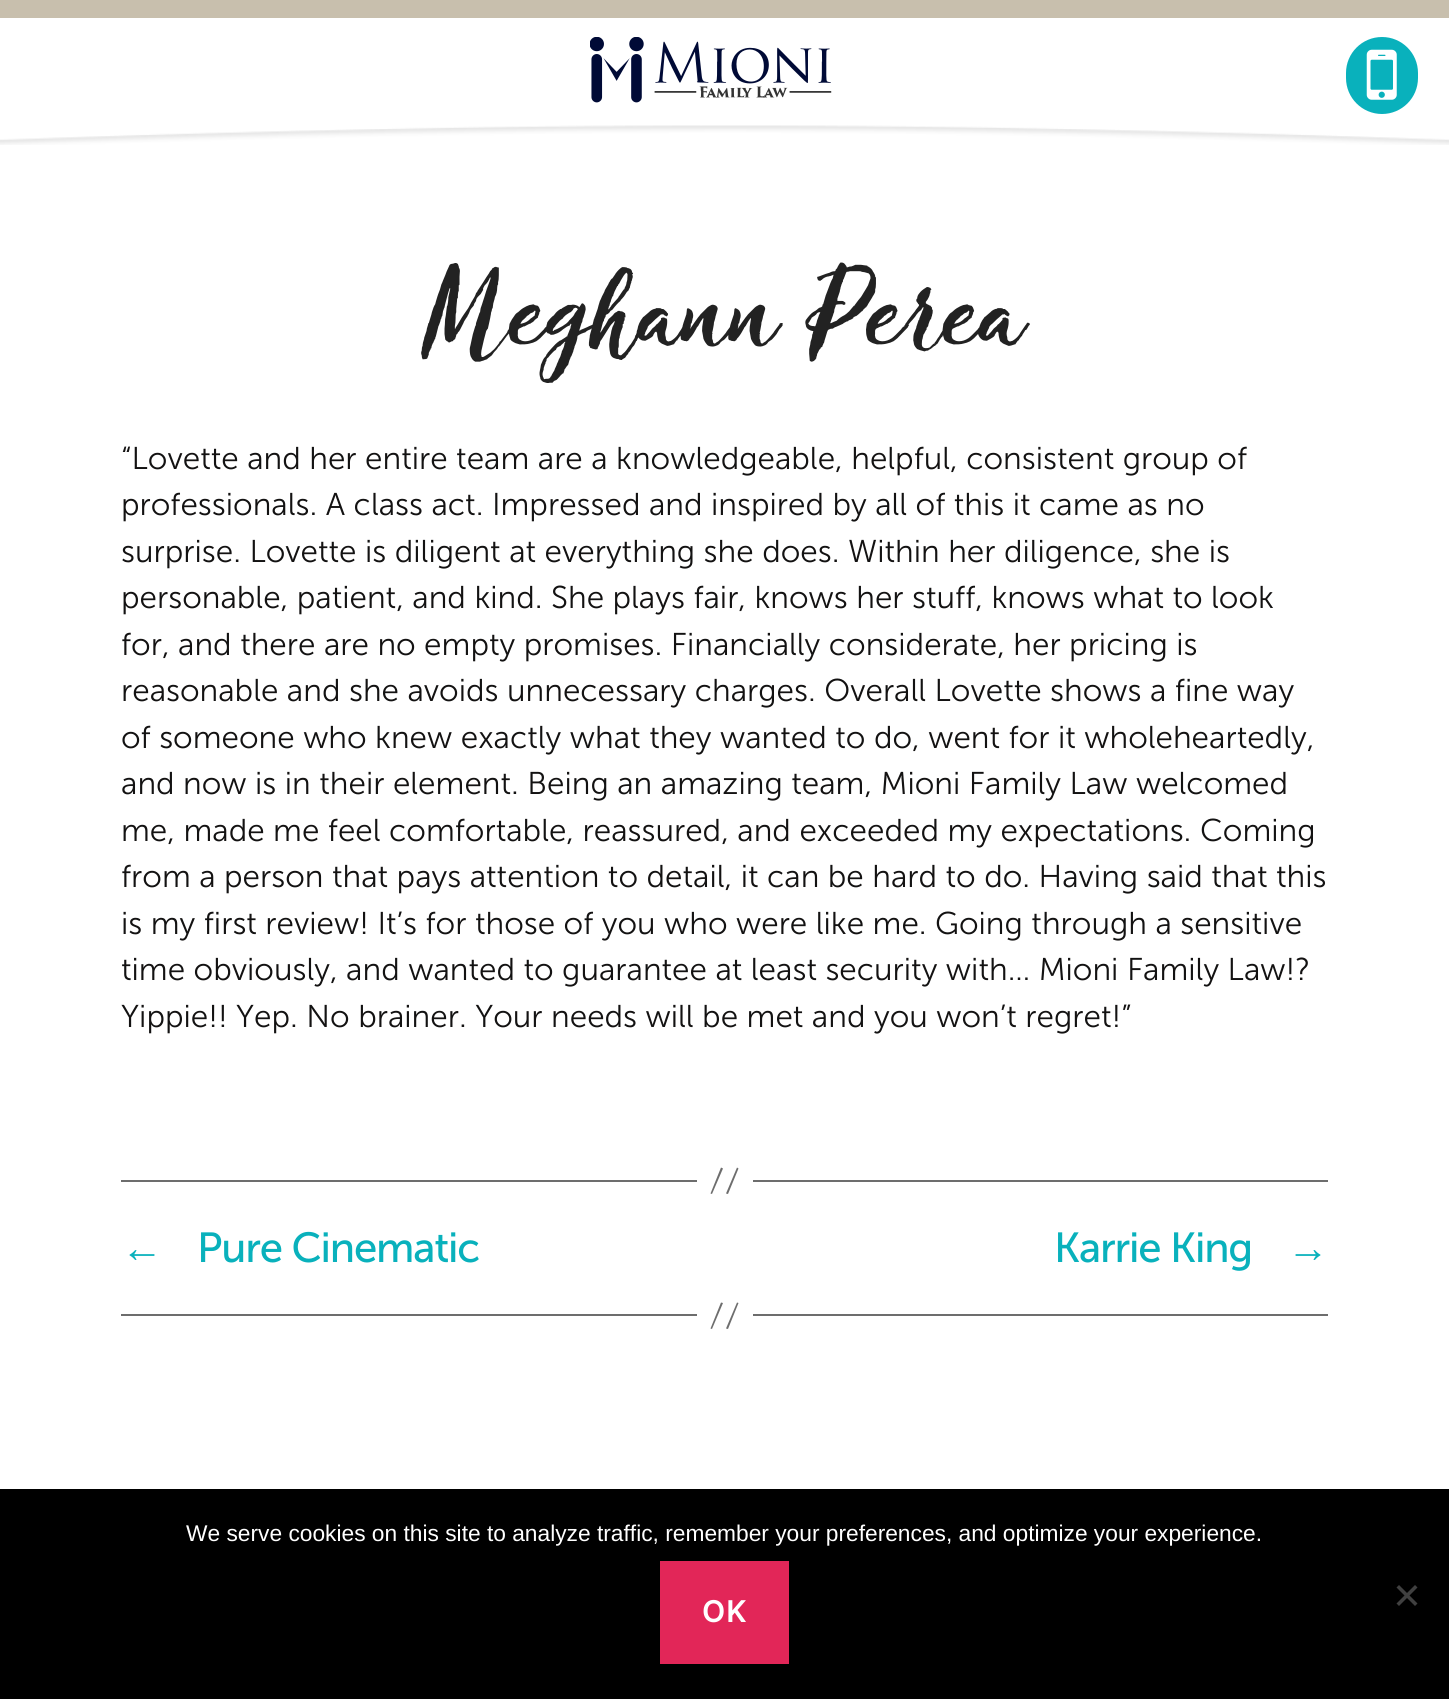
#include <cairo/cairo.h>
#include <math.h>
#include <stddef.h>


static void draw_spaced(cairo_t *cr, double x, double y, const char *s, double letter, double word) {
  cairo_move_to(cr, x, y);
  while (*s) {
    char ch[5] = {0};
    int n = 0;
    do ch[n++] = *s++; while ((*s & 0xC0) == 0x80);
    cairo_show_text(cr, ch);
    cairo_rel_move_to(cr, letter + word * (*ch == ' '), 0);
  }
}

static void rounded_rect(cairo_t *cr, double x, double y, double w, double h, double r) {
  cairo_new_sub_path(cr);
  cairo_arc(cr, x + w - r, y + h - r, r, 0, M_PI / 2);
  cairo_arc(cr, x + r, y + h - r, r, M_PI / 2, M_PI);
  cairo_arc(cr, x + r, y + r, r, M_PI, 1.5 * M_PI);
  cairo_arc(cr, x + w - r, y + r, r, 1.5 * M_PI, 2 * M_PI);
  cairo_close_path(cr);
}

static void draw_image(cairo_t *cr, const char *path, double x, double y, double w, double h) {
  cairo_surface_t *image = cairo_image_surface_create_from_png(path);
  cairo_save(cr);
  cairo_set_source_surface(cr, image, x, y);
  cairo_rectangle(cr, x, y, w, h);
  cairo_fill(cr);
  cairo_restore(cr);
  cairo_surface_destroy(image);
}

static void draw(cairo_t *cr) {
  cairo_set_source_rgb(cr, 1, 1, 1);
  cairo_paint(cr);
  draw_image(cr, "images/1.png", 0, 125, 1449, 20);
  cairo_set_source_rgb(cr, 200 / 255.0, 191 / 255.0, 173 / 255.0);
  cairo_rectangle(cr, 0, 0, 1449, 18);
  cairo_fill(cr);
  draw_image(cr, "images/2.png", 590, 37, 242, 66);
  cairo_set_source_rgb(cr, 9 / 255.0, 177 / 255.0, 188 / 255.0);
  rounded_rect(cr, 1346, 37, 72, 77, 36);
  cairo_fill(cr);
  draw_image(cr, "images/3.png", 1366, 49, 31, 51);
  draw_image(cr, "images/4.png", 421, 262, 609, 121);
  cairo_set_source_rgb(cr, 109 / 255.0, 109 / 255.0, 109 / 255.0);
  cairo_rectangle(cr, 753, 1180, 575, 2);
  cairo_fill(cr);
  cairo_rectangle(cr, 121, 1180, 576, 2);
  cairo_fill(cr);
  cairo_new_path(cr);
  cairo_move_to(cr, 721, 1167.5);
  cairo_line_to(cr, 723, 1168.5);
  cairo_line_to(cr, 712, 1194);
  cairo_line_to(cr, 710.5, 1193.5);
  cairo_close_path(cr);
  cairo_move_to(cr, 737, 1167.5);
  cairo_line_to(cr, 738.5, 1168.5);
  cairo_line_to(cr, 728, 1194);
  cairo_line_to(cr, 726, 1193.5);
  cairo_close_path(cr);
  cairo_fill(cr);
  cairo_rectangle(cr, 753, 1314, 575, 2);
  cairo_fill(cr);
  cairo_rectangle(cr, 121, 1314, 576, 2);
  cairo_fill(cr);
  cairo_new_path(cr);
  cairo_move_to(cr, 721, 1302.5);
  cairo_line_to(cr, 723, 1303);
  cairo_line_to(cr, 712, 1329);
  cairo_line_to(cr, 710.5, 1328.5);
  cairo_close_path(cr);
  cairo_move_to(cr, 737, 1302.5);
  cairo_line_to(cr, 738.5, 1303);
  cairo_line_to(cr, 728, 1329);
  cairo_line_to(cr, 726, 1328.5);
  cairo_close_path(cr);
  cairo_fill(cr);
  cairo_set_source_rgb(cr, 0, 0, 0);
  cairo_rectangle(cr, 0, 1489, 1449, 210);
  cairo_fill(cr);
  cairo_set_source_rgb(cr, 64 / 255.0, 64 / 255.0, 64 / 255.0);
  cairo_new_path(cr);
  cairo_move_to(cr, 1415, 1585);
  cairo_line_to(cr, 1417.5, 1587.5);
  cairo_line_to(cr, 1399, 1606);
  cairo_line_to(cr, 1396.5, 1603.5);
  cairo_close_path(cr);
  cairo_fill(cr);
  cairo_new_path(cr);
  cairo_move_to(cr, 1396.5, 1587.5);
  cairo_line_to(cr, 1399, 1585);
  cairo_line_to(cr, 1417.5, 1603.5);
  cairo_line_to(cr, 1415, 1606);
  cairo_close_path(cr);
  cairo_fill(cr);
  cairo_set_source_rgb(cr, 226 / 255.0, 38 / 255.0, 88 / 255.0);
  cairo_rectangle(cr, 660, 1561, 129, 103);
  cairo_fill(cr);
  cairo_select_font_face(cr, "Museo Sans Light", CAIRO_FONT_SLANT_NORMAL, CAIRO_FONT_WEIGHT_NORMAL);
  cairo_set_font_size(cr, 31.5);
  cairo_set_source_rgb(cr, 19 / 255.0, 18 / 255.0, 18 / 255.0);
  cairo_move_to(cr, 121, 469);
  cairo_show_text(cr, "“Lovette and her entire team are a knowledgeable, helpful, consistent group of");
  cairo_move_to(cr, 121, 515);
  cairo_show_text(cr, "professionals. A class act. Impressed and inspired by all of this it came as no");
  cairo_move_to(cr, 121, 562);
  cairo_show_text(cr, "surprise. Lovette is diligent at everything she does. Within her diligence, she is");
  cairo_move_to(cr, 121, 608);
  cairo_show_text(cr, "personable, patient, and kind. She plays fair, knows her stuff, knows what to look");
  cairo_move_to(cr, 121, 655);
  cairo_show_text(cr, "for, and there are no empty promises. Financially considerate, her pricing is");
  cairo_move_to(cr, 121, 701);
  cairo_show_text(cr, "reasonable and she avoids unnecessary charges. Overall Lovette shows a fine way");
  cairo_move_to(cr, 121, 748);
  cairo_show_text(cr, "of someone who knew exactly what they wanted to do, went for it wholeheartedly,");
  cairo_move_to(cr, 121, 794);
  cairo_show_text(cr, "and now is in their element. Being an amazing team, Mioni Family Law welcomed");
  cairo_move_to(cr, 121, 841);
  cairo_show_text(cr, "me, made me feel comfortable, reassured, and exceeded my expectations. Coming");
  cairo_move_to(cr, 121, 887);
  cairo_show_text(cr, "from a person that pays attention to detail, it can be hard to do. Having said that this");
  cairo_move_to(cr, 121, 934);
  cairo_show_text(cr, "is my first review! It’s for those of you who were like me. Going through a sensitive");
  cairo_move_to(cr, 121, 980);
  cairo_show_text(cr, "time obviously, and wanted to guarantee at least security with… Mioni Family Law!?");
  cairo_move_to(cr, 121, 1027);
  cairo_show_text(cr, "Yippie!! Yep. No brainer. Your needs will be met and you won’t regret!”");
  cairo_select_font_face(cr, "Liberation Sans", CAIRO_FONT_SLANT_NORMAL, CAIRO_FONT_WEIGHT_NORMAL);
  cairo_set_font_size(cr, 42);
  cairo_set_source_rgb(cr, 9 / 255.0, 177 / 255.0, 188 / 255.0);
  draw_spaced(cr, 121, 1262, "←", -1.2, 0);
  cairo_select_font_face(cr, "Museo Sans", CAIRO_FONT_SLANT_NORMAL, CAIRO_FONT_WEIGHT_NORMAL);
  draw_spaced(cr, 197, 1262, "Pure Cinematic", -1.2, 0);
  draw_spaced(cr, 1054, 1262, "Karrie King", -1.2, 0);
  cairo_select_font_face(cr, "Liberation Sans", CAIRO_FONT_SLANT_NORMAL, CAIRO_FONT_WEIGHT_NORMAL);
  draw_spaced(cr, 1287, 1262, "→", -1.2, 0);
  cairo_set_font_size(cr, 22.75);
  cairo_set_source_rgb(cr, 1, 1, 1);
  cairo_move_to(cr, 186, 1541);
  cairo_show_text(cr, "We serve cookies on this site to analyze traffic, remember your preferences, and optimize your experience.");
  cairo_select_font_face(cr, "Inter SemiBold", CAIRO_FONT_SLANT_NORMAL, CAIRO_FONT_WEIGHT_NORMAL);
  cairo_set_font_size(cr, 30);
  draw_spaced(cr, 702, 1622, "OK", 1, 0);
}

int main(void) {
  cairo_surface_t *surface = cairo_image_surface_create(CAIRO_FORMAT_RGB24, 1449, 1699);
  cairo_t *cr = cairo_create(surface);
  cairo_font_options_t *options = cairo_font_options_create();
  cairo_font_options_set_hint_metrics(options, CAIRO_HINT_METRICS_OFF);
  cairo_font_options_set_hint_style(options, CAIRO_HINT_STYLE_NONE);
  cairo_set_font_options(cr, options);
  cairo_set_miter_limit(cr, 4);
  draw(cr);
  cairo_surface_write_to_png(surface, "out.png");
  cairo_font_options_destroy(options);
  cairo_destroy(cr);
  cairo_surface_destroy(surface);
  return 0;
}
